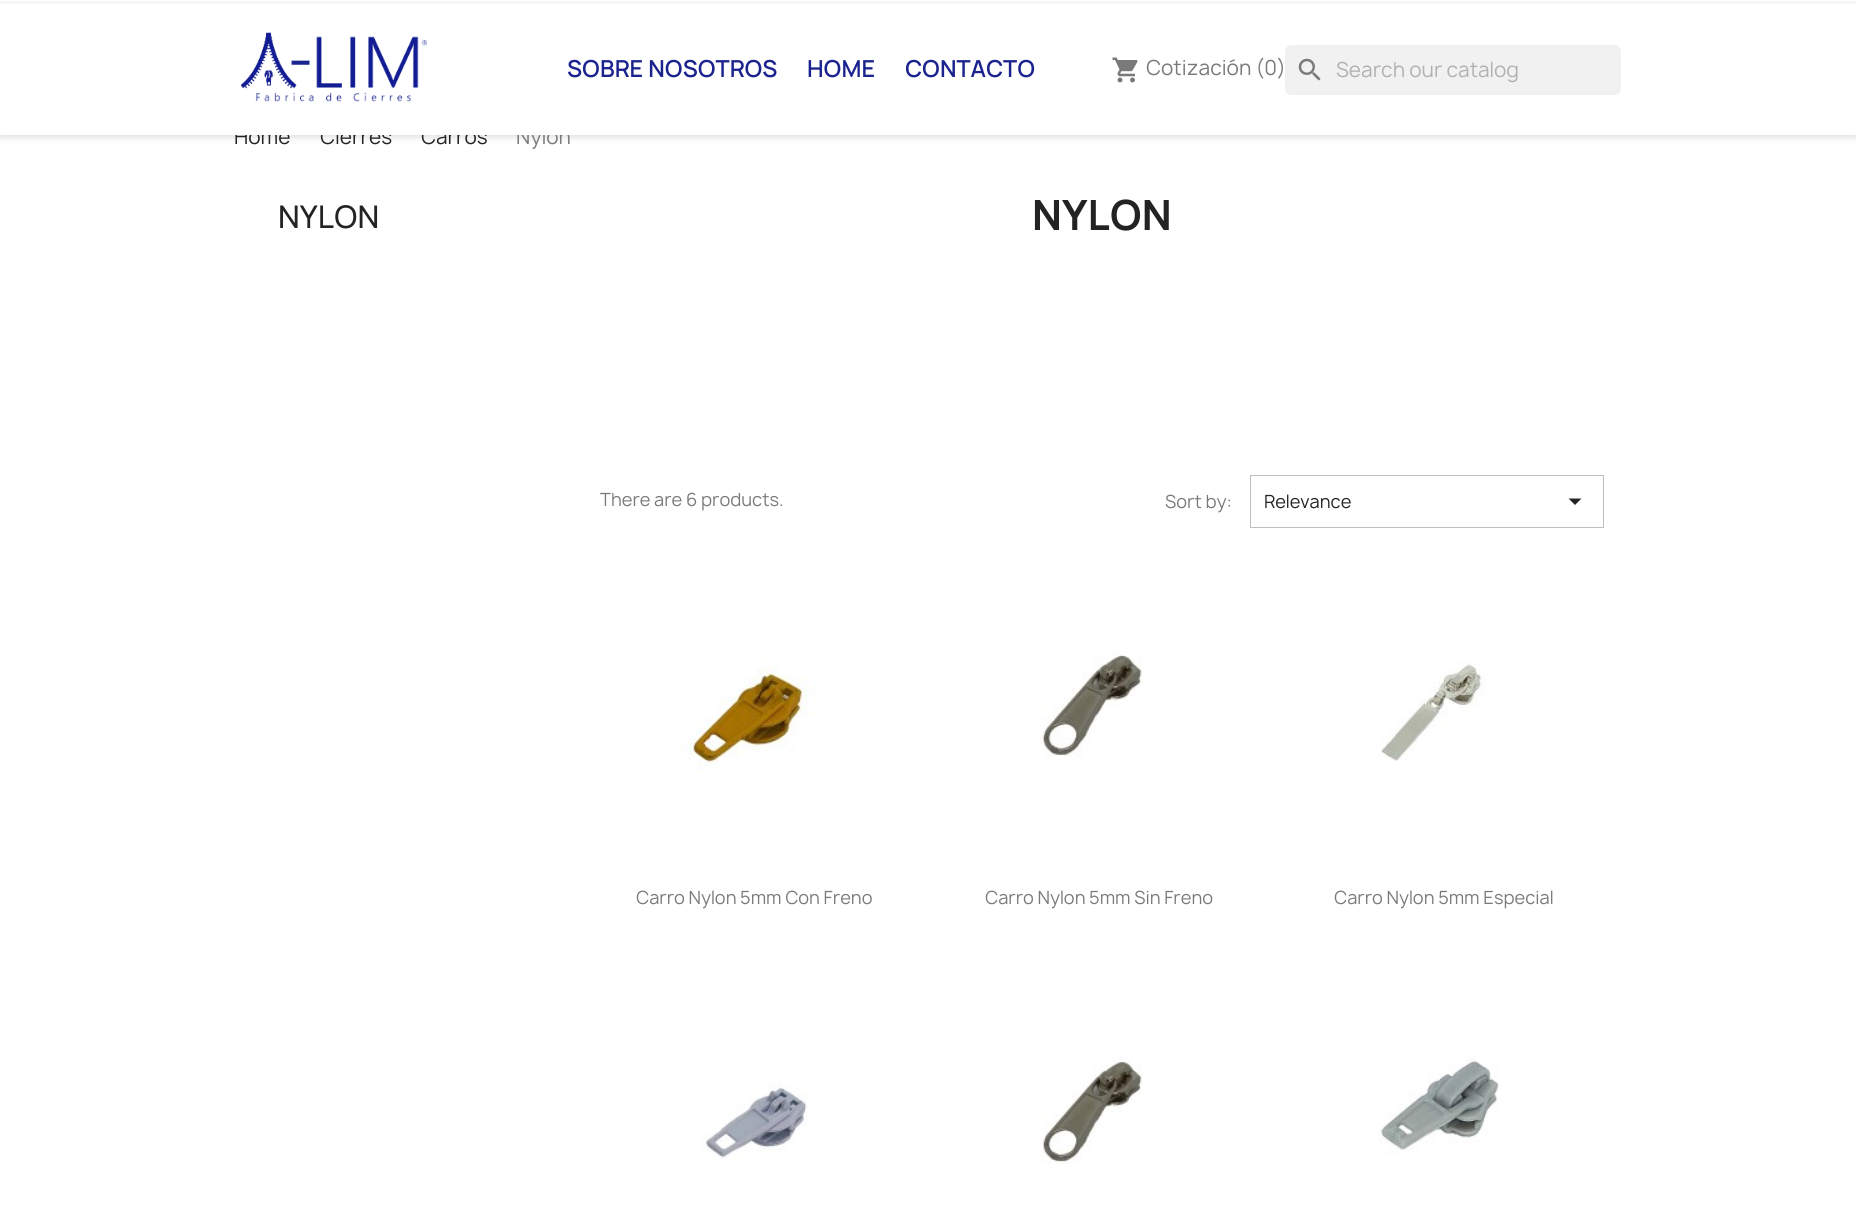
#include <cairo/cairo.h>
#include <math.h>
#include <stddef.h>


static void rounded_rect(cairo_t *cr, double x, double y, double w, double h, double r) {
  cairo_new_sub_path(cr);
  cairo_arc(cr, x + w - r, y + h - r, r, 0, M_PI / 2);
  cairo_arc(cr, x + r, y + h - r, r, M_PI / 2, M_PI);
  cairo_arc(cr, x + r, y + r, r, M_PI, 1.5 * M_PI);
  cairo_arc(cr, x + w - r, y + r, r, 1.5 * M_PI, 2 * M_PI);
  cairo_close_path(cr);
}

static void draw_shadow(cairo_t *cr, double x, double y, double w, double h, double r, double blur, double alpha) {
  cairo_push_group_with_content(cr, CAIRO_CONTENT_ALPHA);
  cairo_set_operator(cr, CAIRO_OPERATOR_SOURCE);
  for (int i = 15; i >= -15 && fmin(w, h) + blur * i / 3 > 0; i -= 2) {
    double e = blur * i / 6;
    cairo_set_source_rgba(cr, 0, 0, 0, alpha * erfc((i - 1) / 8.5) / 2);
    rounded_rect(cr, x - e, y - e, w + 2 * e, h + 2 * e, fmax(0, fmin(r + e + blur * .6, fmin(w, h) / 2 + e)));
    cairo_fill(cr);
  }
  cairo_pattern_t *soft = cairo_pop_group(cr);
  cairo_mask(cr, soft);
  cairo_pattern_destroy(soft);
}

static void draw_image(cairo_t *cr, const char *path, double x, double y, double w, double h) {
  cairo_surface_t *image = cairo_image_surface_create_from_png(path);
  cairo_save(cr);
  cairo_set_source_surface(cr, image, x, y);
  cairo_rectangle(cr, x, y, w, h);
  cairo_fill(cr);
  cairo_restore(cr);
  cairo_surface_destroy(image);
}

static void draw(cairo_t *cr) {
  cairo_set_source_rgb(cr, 1, 1, 1);
  cairo_paint(cr);
  cairo_set_source_rgb(cr, 0, 0, 0);
  draw_shadow(cr, 0, 3, 1856, 135, 0, 3, 0.11);
  cairo_rectangle(cr, 1250.5, 475.5, 353, 52);
  cairo_set_source_rgb(cr, 191 / 255.0, 191 / 255.0, 191 / 255.0);
  cairo_set_line_width(cr, 1);
  cairo_stroke(cr);
  cairo_set_source_rgb(cr, 35 / 255.0, 35 / 255.0, 35 / 255.0);
  cairo_new_path(cr);
  cairo_move_to(cr, 1568.5, 498.5);
  cairo_line_to(cr, 1581.5, 498.5);
  cairo_line_to(cr, 1575, 505);
  cairo_close_path(cr);
  cairo_fill(cr);
  draw_image(cr, "images/4.png", 680, 660, 138, 113);
  draw_image(cr, "images/5.png", 1042, 651, 101, 107);
  draw_image(cr, "images/6.png", 1379, 660, 107, 101);
  draw_image(cr, "images/7.png", 699, 1084, 108, 78);
  draw_image(cr, "images/8.png", 1042, 1055, 101, 109);
  draw_image(cr, "images/9.png", 1378, 1056, 121, 98);
  cairo_select_font_face(cr, "Manrope", CAIRO_FONT_SLANT_NORMAL, CAIRO_FONT_WEIGHT_NORMAL);
  cairo_set_font_size(cr, 20);
  cairo_move_to(cr, 234, 144);
  cairo_show_text(cr, "Home");
  cairo_move_to(cr, 320, 144);
  cairo_show_text(cr, "Cierres");
  cairo_move_to(cr, 421, 144);
  cairo_show_text(cr, "Carros");
  cairo_set_source_rgb(cr, 122 / 255.0, 122 / 255.0, 122 / 255.0);
  cairo_move_to(cr, 516, 144);
  cairo_show_text(cr, "Nylon");
  cairo_set_source_rgb(cr, 1, 1, 1);
  cairo_rectangle(cr, 0, 0, 1856, 135);
  cairo_fill(cr);
  cairo_set_source_rgb(cr, 241 / 255.0, 241 / 255.0, 241 / 255.0);
  rounded_rect(cr, 1285, 45, 336, 50, 6);
  cairo_fill(cr);
  draw_image(cr, "images/3.png", 1298, 58, 23, 23);
  cairo_set_source_rgb(cr, 177 / 255.0, 177 / 255.0, 177 / 255.0);
  cairo_move_to(cr, 1336, 77);
  cairo_show_text(cr, "Search our catalog");
  draw_image(cr, "images/1.png", 240, 32, 187, 70);
  cairo_set_source_rgb(cr, 122 / 255.0, 122 / 255.0, 122 / 255.0);
  cairo_move_to(cr, 1146, 75);
  cairo_show_text(cr, "Cotización (0)");
  draw_image(cr, "images/2.png", 1112, 57, 26, 26);
  cairo_select_font_face(cr, "Manrope SemiBold", CAIRO_FONT_SLANT_NORMAL, CAIRO_FONT_WEIGHT_NORMAL);
  cairo_set_font_size(cr, 22.5);
  cairo_set_source_rgb(cr, 27 / 255.0, 35 / 255.0, 143 / 255.0);
  cairo_move_to(cr, 905, 77);
  cairo_show_text(cr, "CONTACTO");
  cairo_move_to(cr, 807, 77);
  cairo_show_text(cr, "HOME");
  cairo_move_to(cr, 567, 77);
  cairo_show_text(cr, "SOBRE NOSOTROS");
  cairo_set_source_rgb(cr, 246 / 255.0, 246 / 255.0, 246 / 255.0);
  cairo_rectangle(cr, 0, 1, 1856, 3);
  cairo_fill(cr);
  cairo_select_font_face(cr, "Manrope Medium", CAIRO_FONT_SLANT_NORMAL, CAIRO_FONT_WEIGHT_NORMAL);
  cairo_set_font_size(cr, 30);
  cairo_set_source_rgb(cr, 35 / 255.0, 35 / 255.0, 35 / 255.0);
  cairo_move_to(cr, 278, 228);
  cairo_show_text(cr, "NYLON");
  cairo_select_font_face(cr, "Manrope", CAIRO_FONT_SLANT_NORMAL, CAIRO_FONT_WEIGHT_BOLD);
  cairo_set_font_size(cr, 40);
  cairo_move_to(cr, 1032, 230);
  cairo_show_text(cr, "NYLON");
  cairo_select_font_face(cr, "Manrope", CAIRO_FONT_SLANT_NORMAL, CAIRO_FONT_WEIGHT_NORMAL);
  cairo_set_font_size(cr, 17.5);
  cairo_set_source_rgb(cr, 122 / 255.0, 122 / 255.0, 122 / 255.0);
  cairo_move_to(cr, 600, 506);
  cairo_show_text(cr, "There are 6 products.");
  cairo_move_to(cr, 1165, 508);
  cairo_show_text(cr, "Sort by:");
  cairo_set_source_rgb(cr, 35 / 255.0, 35 / 255.0, 35 / 255.0);
  cairo_move_to(cr, 1264, 508);
  cairo_show_text(cr, "Relevance");
  cairo_set_source_rgb(cr, 122 / 255.0, 122 / 255.0, 122 / 255.0);
  cairo_move_to(cr, 636, 904);
  cairo_show_text(cr, "Carro Nylon 5mm Con Freno");
  cairo_move_to(cr, 985, 904);
  cairo_show_text(cr, "Carro Nylon 5mm Sin Freno");
  cairo_move_to(cr, 1334, 904);
  cairo_show_text(cr, "Carro Nylon 5mm Especial");
}

int main(void) {
  cairo_surface_t *surface = cairo_image_surface_create(CAIRO_FORMAT_RGB24, 1856, 1210);
  cairo_t *cr = cairo_create(surface);
  cairo_font_options_t *options = cairo_font_options_create();
  cairo_font_options_set_hint_metrics(options, CAIRO_HINT_METRICS_OFF);
  cairo_font_options_set_hint_style(options, CAIRO_HINT_STYLE_NONE);
  cairo_set_font_options(cr, options);
  cairo_set_miter_limit(cr, 4);
  draw(cr);
  cairo_surface_write_to_png(surface, "out.png");
  cairo_font_options_destroy(options);
  cairo_destroy(cr);
  cairo_surface_destroy(surface);
  return 0;
}
